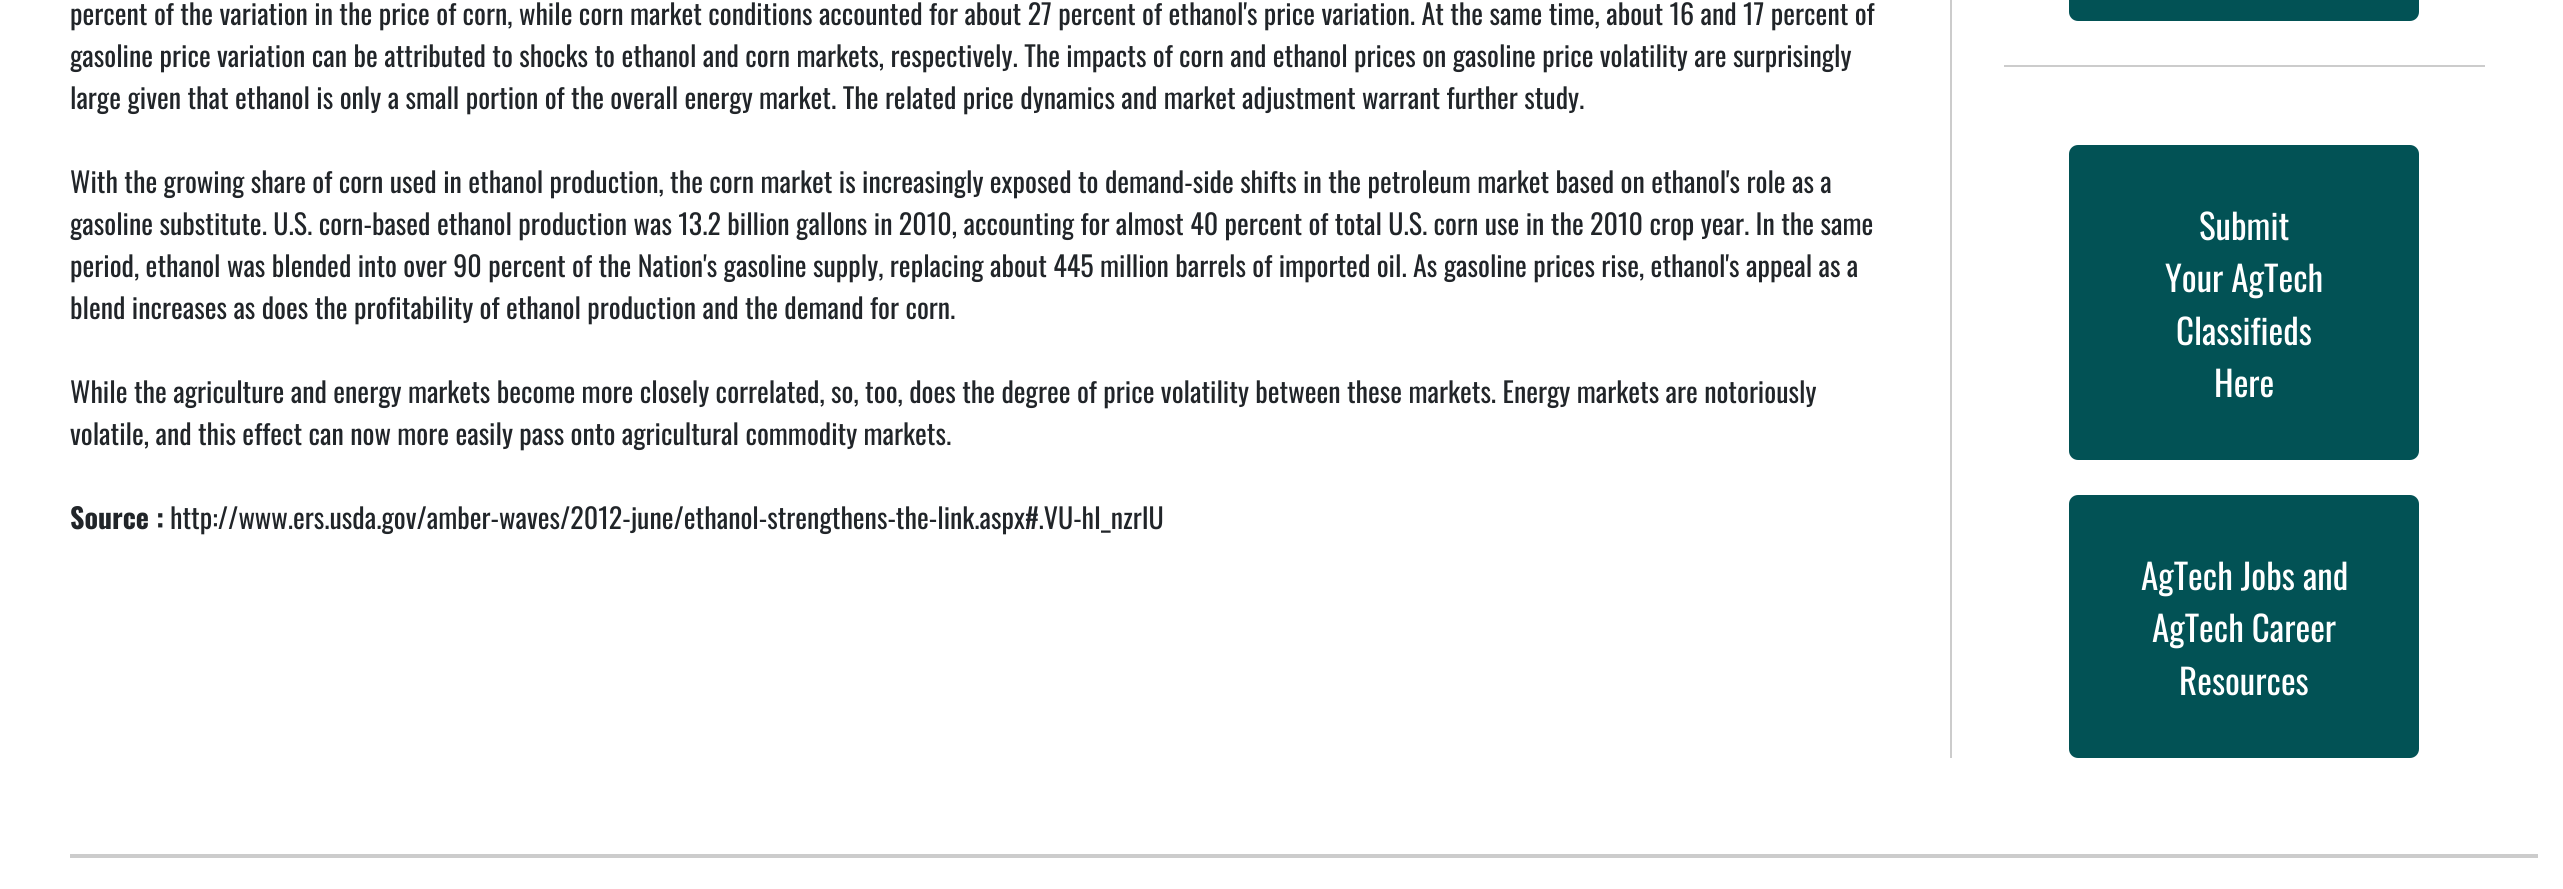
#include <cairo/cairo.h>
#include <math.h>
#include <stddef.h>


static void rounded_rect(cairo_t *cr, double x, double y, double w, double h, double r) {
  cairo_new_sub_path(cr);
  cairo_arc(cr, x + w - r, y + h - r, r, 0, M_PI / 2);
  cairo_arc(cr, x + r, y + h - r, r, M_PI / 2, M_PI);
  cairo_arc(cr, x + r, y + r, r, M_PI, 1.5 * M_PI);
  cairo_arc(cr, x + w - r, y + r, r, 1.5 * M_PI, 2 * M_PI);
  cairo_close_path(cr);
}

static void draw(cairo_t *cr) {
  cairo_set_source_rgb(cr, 1, 1, 1);
  cairo_paint(cr);
  cairo_set_source_rgb(cr, 204 / 255.0, 204 / 255.0, 204 / 255.0);
  cairo_rectangle(cr, 1950, 0, 2, 758);
  cairo_fill(cr);
  cairo_rectangle(cr, 2004, 65, 481, 2);
  cairo_fill(cr);
  cairo_set_source_rgb(cr, 2 / 255.0, 82 / 255.0, 85 / 255.0);
  rounded_rect(cr, 2069, -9, 350, 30, 9);
  cairo_fill(cr);
  rounded_rect(cr, 2069, 145, 350, 315, 9);
  cairo_fill(cr);
  rounded_rect(cr, 2069, 495, 350, 263, 9);
  cairo_fill(cr);
  cairo_set_source_rgb(cr, 204 / 255.0, 204 / 255.0, 204 / 255.0);
  cairo_rectangle(cr, 70, 854, 2468, 4);
  cairo_fill(cr);
  cairo_select_font_face(cr, "Oswald", CAIRO_FONT_SLANT_NORMAL, CAIRO_FONT_WEIGHT_NORMAL);
  cairo_set_font_size(cr, 28);
  cairo_set_source_rgb(cr, 33 / 255.0, 37 / 255.0, 41 / 255.0);
  cairo_move_to(cr, 70, 25);
  cairo_show_text(cr, "percent of the variation in the price of corn, while corn market conditions accounted for about 27 percent of ethanol's price variation. At the same time, about 16 and 17 percent of");
  cairo_move_to(cr, 70, 67);
  cairo_show_text(cr, "gasoline price variation can be attributed to shocks to ethanol and corn markets, respectively. The impacts of corn and ethanol prices on gasoline price volatility are surprisingly");
  cairo_move_to(cr, 70, 109);
  cairo_show_text(cr, "large given that ethanol is only a small portion of the overall energy market. The related price dynamics and market adjustment warrant further study.");
  cairo_move_to(cr, 70, 193);
  cairo_show_text(cr, "With the growing share of corn used in ethanol production, the corn market is increasingly exposed to demand-side shifts in the petroleum market based on ethanol's role as a");
  cairo_move_to(cr, 70, 235);
  cairo_show_text(cr, "gasoline substitute. U.S. corn-based ethanol production was 13.2 billion gallons in 2010, accounting for almost 40 percent of total U.S. corn use in the 2010 crop year. In the same");
  cairo_move_to(cr, 70, 277);
  cairo_show_text(cr, "period, ethanol was blended into over 90 percent of the Nation's gasoline supply, replacing about 445 million barrels of imported oil. As gasoline prices rise, ethanol's appeal as a");
  cairo_move_to(cr, 70, 319);
  cairo_show_text(cr, "blend increases as does the profitability of ethanol production and the demand for corn.");
  cairo_move_to(cr, 70, 403);
  cairo_show_text(cr, "While the agriculture and energy markets become more closely correlated, so, too, does the degree of price volatility between these markets. Energy markets are notoriously");
  cairo_move_to(cr, 70, 445);
  cairo_show_text(cr, "volatile, and this effect can now more easily pass onto agricultural commodity markets.");
  cairo_select_font_face(cr, "Oswald", CAIRO_FONT_SLANT_NORMAL, CAIRO_FONT_WEIGHT_BOLD);
  cairo_move_to(cr, 70, 529);
  cairo_show_text(cr, "Source :");
  cairo_select_font_face(cr, "Oswald", CAIRO_FONT_SLANT_NORMAL, CAIRO_FONT_WEIGHT_NORMAL);
  cairo_move_to(cr, 170, 529);
  cairo_show_text(cr, "http://www.ers.usda.gov/amber-waves/2012-june/ethanol-strengthens-the-link.aspx#.VU-hI_nzrIU");
  cairo_set_font_size(cr, 35);
  cairo_set_source_rgb(cr, 1, 1, 1);
  cairo_move_to(cr, 2199, 240);
  cairo_show_text(cr, "Submit");
  cairo_move_to(cr, 2165, 292);
  cairo_show_text(cr, "Your AgTech");
  cairo_move_to(cr, 2176, 345);
  cairo_show_text(cr, "Classifieds");
  cairo_move_to(cr, 2214, 397);
  cairo_show_text(cr, "Here");
  cairo_move_to(cr, 2141, 590);
  cairo_show_text(cr, "AgTech Jobs and");
  cairo_move_to(cr, 2152, 642);
  cairo_show_text(cr, "AgTech Career");
  cairo_move_to(cr, 2179, 695);
  cairo_show_text(cr, "Resources");
}

int main(void) {
  cairo_surface_t *surface = cairo_image_surface_create(CAIRO_FORMAT_RGB24, 2563, 889);
  cairo_t *cr = cairo_create(surface);
  cairo_font_options_t *options = cairo_font_options_create();
  cairo_font_options_set_hint_metrics(options, CAIRO_HINT_METRICS_OFF);
  cairo_font_options_set_hint_style(options, CAIRO_HINT_STYLE_NONE);
  cairo_set_font_options(cr, options);
  cairo_set_miter_limit(cr, 4);
  draw(cr);
  cairo_surface_write_to_png(surface, "out.png");
  cairo_font_options_destroy(options);
  cairo_destroy(cr);
  cairo_surface_destroy(surface);
  return 0;
}
